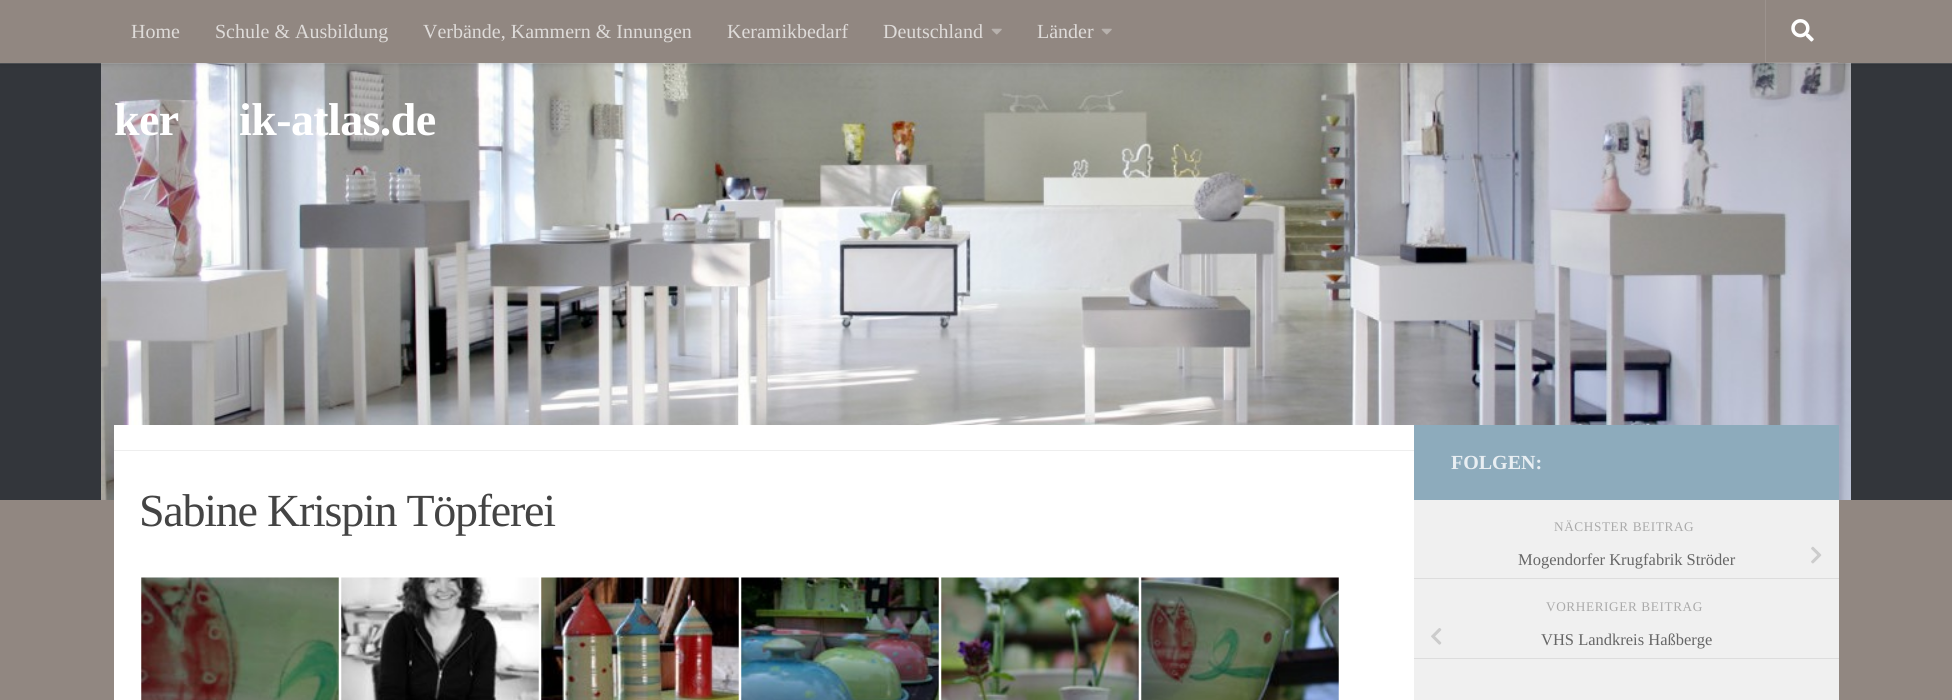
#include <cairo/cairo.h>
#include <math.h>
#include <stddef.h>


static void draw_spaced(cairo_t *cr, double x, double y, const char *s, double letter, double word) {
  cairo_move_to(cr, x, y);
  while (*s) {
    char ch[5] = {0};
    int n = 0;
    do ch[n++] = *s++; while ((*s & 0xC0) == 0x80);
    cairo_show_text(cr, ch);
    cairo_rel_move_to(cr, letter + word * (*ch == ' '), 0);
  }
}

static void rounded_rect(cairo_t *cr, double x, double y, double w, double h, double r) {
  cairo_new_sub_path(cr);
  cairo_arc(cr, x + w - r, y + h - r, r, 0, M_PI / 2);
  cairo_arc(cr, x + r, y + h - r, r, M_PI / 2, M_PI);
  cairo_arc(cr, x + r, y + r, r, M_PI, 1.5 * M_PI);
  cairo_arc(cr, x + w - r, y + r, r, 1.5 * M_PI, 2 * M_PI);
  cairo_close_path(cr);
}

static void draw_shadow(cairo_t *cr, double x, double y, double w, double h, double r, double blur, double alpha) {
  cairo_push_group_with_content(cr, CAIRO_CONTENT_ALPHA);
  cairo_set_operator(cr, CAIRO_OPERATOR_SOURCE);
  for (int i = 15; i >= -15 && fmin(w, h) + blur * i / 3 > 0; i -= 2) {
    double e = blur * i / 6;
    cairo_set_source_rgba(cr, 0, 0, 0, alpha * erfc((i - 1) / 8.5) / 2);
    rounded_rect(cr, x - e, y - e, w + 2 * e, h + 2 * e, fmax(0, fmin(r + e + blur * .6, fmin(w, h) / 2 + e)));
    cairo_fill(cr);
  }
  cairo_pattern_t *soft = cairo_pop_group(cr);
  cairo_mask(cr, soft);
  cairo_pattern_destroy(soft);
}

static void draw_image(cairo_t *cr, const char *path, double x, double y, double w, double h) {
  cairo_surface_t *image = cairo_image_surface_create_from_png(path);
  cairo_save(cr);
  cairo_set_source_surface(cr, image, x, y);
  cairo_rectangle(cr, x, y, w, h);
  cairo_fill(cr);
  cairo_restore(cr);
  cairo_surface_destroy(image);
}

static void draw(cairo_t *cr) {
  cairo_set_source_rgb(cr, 145 / 255.0, 135 / 255.0, 129 / 255.0);
  cairo_paint(cr);
  cairo_set_source_rgb(cr, 51 / 255.0, 54 / 255.0, 59 / 255.0);
  cairo_rectangle(cr, 0, 63, 1952, 437);
  cairo_fill(cr);
  draw_image(cr, "images/3.png", 101, 63, 1750, 437);
  cairo_set_source_rgba(cr, 1, 1, 1, 0.15);
  cairo_new_path(cr);
  cairo_move_to(cr, 0, 62);
  cairo_line_to(cr, 0, 64);
  cairo_line_to(cr, 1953, 64);
  cairo_line_to(cr, 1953, 1);
  cairo_line_to(cr, 1952, 1);
  cairo_line_to(cr, 1952, 62);
  cairo_close_path(cr);
  cairo_fill(cr);
  cairo_set_source_rgb(cr, 0, 0, 0);
  draw_shadow(cr, 0, 0, 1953, 63, 0, 3, 0.2);
  cairo_set_source_rgb(cr, 145 / 255.0, 135 / 255.0, 129 / 255.0);
  cairo_rectangle(cr, 0, 0, 1952, 63);
  cairo_fill(cr);
  draw_image(cr, "images/1.png", 991, 28, 11, 7);
  draw_image(cr, "images/1.png", 1101, 28, 11, 7);
  cairo_set_source_rgb(cr, 156 / 255.0, 147 / 255.0, 142 / 255.0);
  cairo_new_path(cr);
  cairo_move_to(cr, 1765, 0);
  cairo_line_to(cr, 1765, 63);
  cairo_line_to(cr, 1838, 63);
  cairo_line_to(cr, 1838, 62);
  cairo_line_to(cr, 1766, 62);
  cairo_line_to(cr, 1766, 0);
  cairo_close_path(cr);
  cairo_fill(cr);
  draw_image(cr, "images/2.png", 1791, 19, 23, 23);
  cairo_set_source_rgb(cr, 1, 1, 1);
  cairo_rectangle(cr, 114, 425, 1300, 275);
  cairo_fill(cr);
  cairo_set_source_rgb(cr, 238 / 255.0, 238 / 255.0, 238 / 255.0);
  cairo_rectangle(cr, 114, 450, 1300, 1);
  cairo_fill(cr);
  draw_image(cr, "images/4.png", 141, 577, 198, 123);
  draw_image(cr, "images/5.png", 341, 577, 198, 123);
  draw_image(cr, "images/6.png", 541, 577, 198, 123);
  draw_image(cr, "images/7.png", 741, 577, 198, 123);
  draw_image(cr, "images/8.png", 941, 577, 198, 123);
  draw_image(cr, "images/9.png", 1141, 577, 198, 123);
  cairo_set_source_rgb(cr, 141 / 255.0, 171 / 255.0, 188 / 255.0);
  cairo_rectangle(cr, 1414, 425, 425, 75);
  cairo_fill(cr);
  cairo_set_source_rgb(cr, 240 / 255.0, 240 / 255.0, 240 / 255.0);
  cairo_rectangle(cr, 1414, 500, 425, 200);
  cairo_fill(cr);
  cairo_set_source_rgb(cr, 221 / 255.0, 221 / 255.0, 221 / 255.0);
  cairo_rectangle(cr, 1414, 578, 425, 1);
  cairo_fill(cr);
  draw_image(cr, "images/10.png", 1811, 546, 11, 18);
  cairo_rectangle(cr, 1414, 658, 425, 1);
  cairo_fill(cr);
  draw_image(cr, "images/11.png", 1431, 628, 11, 17);
  cairo_select_font_face(cr, "Liberation Serif", CAIRO_FONT_SLANT_NORMAL, CAIRO_FONT_WEIGHT_NORMAL);
  cairo_set_font_size(cr, 20);
  cairo_set_source_rgb(cr, 222 / 255.0, 219 / 255.0, 217 / 255.0);
  cairo_move_to(cr, 131, 38);
  cairo_show_text(cr, "Home");
  cairo_move_to(cr, 215, 38);
  cairo_show_text(cr, "Schule & Ausbildung");
  cairo_move_to(cr, 423, 38);
  cairo_show_text(cr, "Verbände, Kammern & Innungen");
  cairo_move_to(cr, 727, 38);
  cairo_show_text(cr, "Keramikbedarf");
  cairo_move_to(cr, 883, 38);
  cairo_show_text(cr, "Deutschland");
  cairo_move_to(cr, 1037, 38);
  cairo_show_text(cr, "Länder");
  cairo_select_font_face(cr, "Liberation Serif", CAIRO_FONT_SLANT_NORMAL, CAIRO_FONT_WEIGHT_BOLD);
  cairo_set_font_size(cr, 46);
  cairo_set_source_rgb(cr, 1, 1, 1);
  draw_spaced(cr, 114, 135, "ker", -0.6, 0);
  draw_spaced(cr, 239, 135, "ik-atlas.de", -0.6, 0);
  cairo_select_font_face(cr, "Liberation Serif", CAIRO_FONT_SLANT_NORMAL, CAIRO_FONT_WEIGHT_NORMAL);
  cairo_set_source_rgb(cr, 68 / 255.0, 68 / 255.0, 68 / 255.0);
  draw_spaced(cr, 139, 526, "Sabine Krispin Töpferei", -1.25, 0);
  cairo_select_font_face(cr, "Liberation Serif", CAIRO_FONT_SLANT_NORMAL, CAIRO_FONT_WEIGHT_BOLD);
  cairo_set_font_size(cr, 20);
  cairo_set_source_rgb(cr, 232 / 255.0, 238 / 255.0, 242 / 255.0);
  cairo_move_to(cr, 1451, 469);
  cairo_show_text(cr, "FOLGEN:");
  cairo_select_font_face(cr, "Liberation Serif", CAIRO_FONT_SLANT_NORMAL, CAIRO_FONT_WEIGHT_NORMAL);
  cairo_set_font_size(cr, 13.25);
  cairo_set_source_rgb(cr, 170 / 255.0, 170 / 255.0, 170 / 255.0);
  draw_spaced(cr, 1554, 531, "NÄCHSTER BEITRAG", 0.6, 0);
  cairo_set_font_size(cr, 16.5);
  cairo_set_source_rgb(cr, 102 / 255.0, 102 / 255.0, 102 / 255.0);
  cairo_move_to(cr, 1518, 565);
  cairo_show_text(cr, "Mogendorfer Krugfabrik Ströder");
  cairo_set_font_size(cr, 13.25);
  cairo_set_source_rgb(cr, 170 / 255.0, 170 / 255.0, 170 / 255.0);
  draw_spaced(cr, 1546, 611, "VORHERIGER BEITRAG", 0.6, 0);
  cairo_set_font_size(cr, 16.5);
  cairo_set_source_rgb(cr, 102 / 255.0, 102 / 255.0, 102 / 255.0);
  cairo_move_to(cr, 1541, 645);
  cairo_show_text(cr, "VHS Landkreis Haßberge");
}

int main(void) {
  cairo_surface_t *surface = cairo_image_surface_create(CAIRO_FORMAT_RGB24, 1952, 700);
  cairo_t *cr = cairo_create(surface);
  cairo_font_options_t *options = cairo_font_options_create();
  cairo_font_options_set_hint_metrics(options, CAIRO_HINT_METRICS_OFF);
  cairo_font_options_set_hint_style(options, CAIRO_HINT_STYLE_NONE);
  cairo_set_font_options(cr, options);
  cairo_set_miter_limit(cr, 4);
  draw(cr);
  cairo_surface_write_to_png(surface, "out.png");
  cairo_font_options_destroy(options);
  cairo_destroy(cr);
  cairo_surface_destroy(surface);
  return 0;
}
